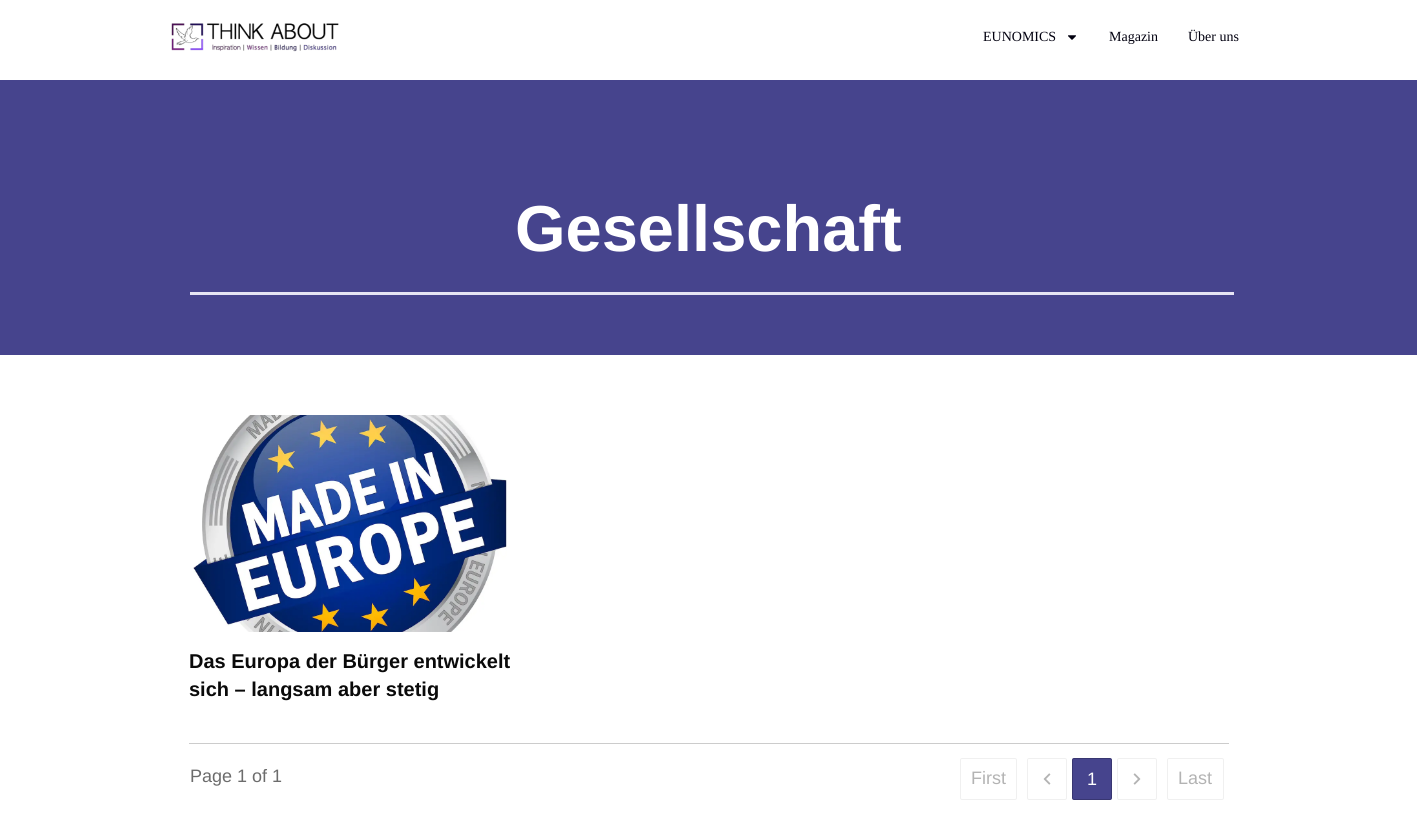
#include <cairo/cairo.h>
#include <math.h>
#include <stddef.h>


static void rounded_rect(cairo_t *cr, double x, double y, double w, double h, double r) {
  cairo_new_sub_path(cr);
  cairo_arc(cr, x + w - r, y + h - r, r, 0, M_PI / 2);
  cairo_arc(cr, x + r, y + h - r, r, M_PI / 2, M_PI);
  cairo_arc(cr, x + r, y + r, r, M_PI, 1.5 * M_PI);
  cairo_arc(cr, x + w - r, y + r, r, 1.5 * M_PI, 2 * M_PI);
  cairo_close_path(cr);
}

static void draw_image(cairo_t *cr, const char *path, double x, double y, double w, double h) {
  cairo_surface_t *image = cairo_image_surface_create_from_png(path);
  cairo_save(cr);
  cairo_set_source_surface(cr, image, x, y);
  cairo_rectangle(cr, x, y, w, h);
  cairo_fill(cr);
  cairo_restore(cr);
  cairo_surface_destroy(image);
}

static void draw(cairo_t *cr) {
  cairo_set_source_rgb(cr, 1, 1, 1);
  cairo_paint(cr);
  draw_image(cr, "images/1.png", 171, 23, 168, 29);
  draw_image(cr, "images/2.png", 1068, 35, 8, 5);
  cairo_set_source_rgb(cr, 70 / 255.0, 68 / 255.0, 141 / 255.0);
  cairo_rectangle(cr, 0, 80, 1417, 275);
  cairo_fill(cr);
  cairo_set_source_rgb(cr, 230 / 255.0, 229 / 255.0, 244 / 255.0);
  cairo_rectangle(cr, 190, 292, 1044, 3);
  cairo_fill(cr);
  draw_image(cr, "images/3.png", 193, 415, 314, 217);
  cairo_set_source_rgb(cr, 204 / 255.0, 204 / 255.0, 204 / 255.0);
  cairo_rectangle(cr, 189, 743, 1040, 1);
  cairo_fill(cr);
  rounded_rect(cr, 960.5, 758.5, 56, 41, 1.5);
  cairo_set_source_rgb(cr, 240 / 255.0, 240 / 255.0, 240 / 255.0);
  cairo_set_line_width(cr, 1);
  cairo_stroke(cr);
  rounded_rect(cr, 1027.5, 758.5, 39, 41, 1.5);
  cairo_stroke(cr);
  draw_image(cr, "images/4.png", 1043, 773, 8, 12);
  cairo_set_source_rgb(cr, 70 / 255.0, 68 / 255.0, 141 / 255.0);
  rounded_rect(cr, 1072, 758, 40, 42, 2);
  cairo_fill(cr);
  rounded_rect(cr, 1072.5, 758.5, 39, 41, 1.5);
  cairo_set_source_rgba(cr, 0, 0, 0, 0.2);
  cairo_stroke(cr);
  rounded_rect(cr, 1117.5, 758.5, 39, 41, 1.5);
  cairo_set_source_rgb(cr, 240 / 255.0, 240 / 255.0, 240 / 255.0);
  cairo_stroke(cr);
  draw_image(cr, "images/5.png", 1133, 773, 8, 12);
  rounded_rect(cr, 1167.5, 758.5, 56, 41, 1.5);
  cairo_stroke(cr);
  cairo_select_font_face(cr, "Liberation Serif", CAIRO_FONT_SLANT_NORMAL, CAIRO_FONT_WEIGHT_NORMAL);
  cairo_set_font_size(cr, 14);
  cairo_set_source_rgb(cr, 1 / 255.0, 0, 15 / 255.0);
  cairo_move_to(cr, 983, 41);
  cairo_show_text(cr, "EUNOMICS");
  cairo_move_to(cr, 1109, 41);
  cairo_show_text(cr, "Magazin");
  cairo_move_to(cr, 1188, 41);
  cairo_show_text(cr, "Über uns");
  cairo_select_font_face(cr, "Liberation Sans", CAIRO_FONT_SLANT_NORMAL, CAIRO_FONT_WEIGHT_BOLD);
  cairo_set_font_size(cr, 65);
  cairo_set_source_rgb(cr, 1, 1, 1);
  cairo_move_to(cr, 515, 251);
  cairo_show_text(cr, "Gesellschaft");
  cairo_set_font_size(cr, 20);
  cairo_set_source_rgb(cr, 10 / 255.0, 10 / 255.0, 10 / 255.0);
  cairo_move_to(cr, 189, 668);
  cairo_show_text(cr, "Das Europa der Bürger entwickelt");
  cairo_move_to(cr, 189, 696);
  cairo_show_text(cr, "sich – langsam aber stetig");
  cairo_select_font_face(cr, "Liberation Sans", CAIRO_FONT_SLANT_NORMAL, CAIRO_FONT_WEIGHT_NORMAL);
  cairo_set_font_size(cr, 18);
  cairo_set_source_rgb(cr, 108 / 255.0, 108 / 255.0, 108 / 255.0);
  cairo_move_to(cr, 190, 782);
  cairo_show_text(cr, "Page 1 of 1");
  cairo_set_source_rgb(cr, 179 / 255.0, 179 / 255.0, 179 / 255.0);
  cairo_move_to(cr, 971, 784);
  cairo_show_text(cr, "First");
  cairo_set_source_rgb(cr, 1, 1, 1);
  cairo_move_to(cr, 1087, 785);
  cairo_show_text(cr, "1");
  cairo_set_source_rgb(cr, 179 / 255.0, 179 / 255.0, 179 / 255.0);
  cairo_move_to(cr, 1178, 784);
  cairo_show_text(cr, "Last");
}

int main(void) {
  cairo_surface_t *surface = cairo_image_surface_create(CAIRO_FORMAT_RGB24, 1417, 813);
  cairo_t *cr = cairo_create(surface);
  cairo_font_options_t *options = cairo_font_options_create();
  cairo_font_options_set_hint_metrics(options, CAIRO_HINT_METRICS_OFF);
  cairo_font_options_set_hint_style(options, CAIRO_HINT_STYLE_NONE);
  cairo_set_font_options(cr, options);
  cairo_set_miter_limit(cr, 4);
  draw(cr);
  cairo_surface_write_to_png(surface, "out.png");
  cairo_font_options_destroy(options);
  cairo_destroy(cr);
  cairo_surface_destroy(surface);
  return 0;
}
